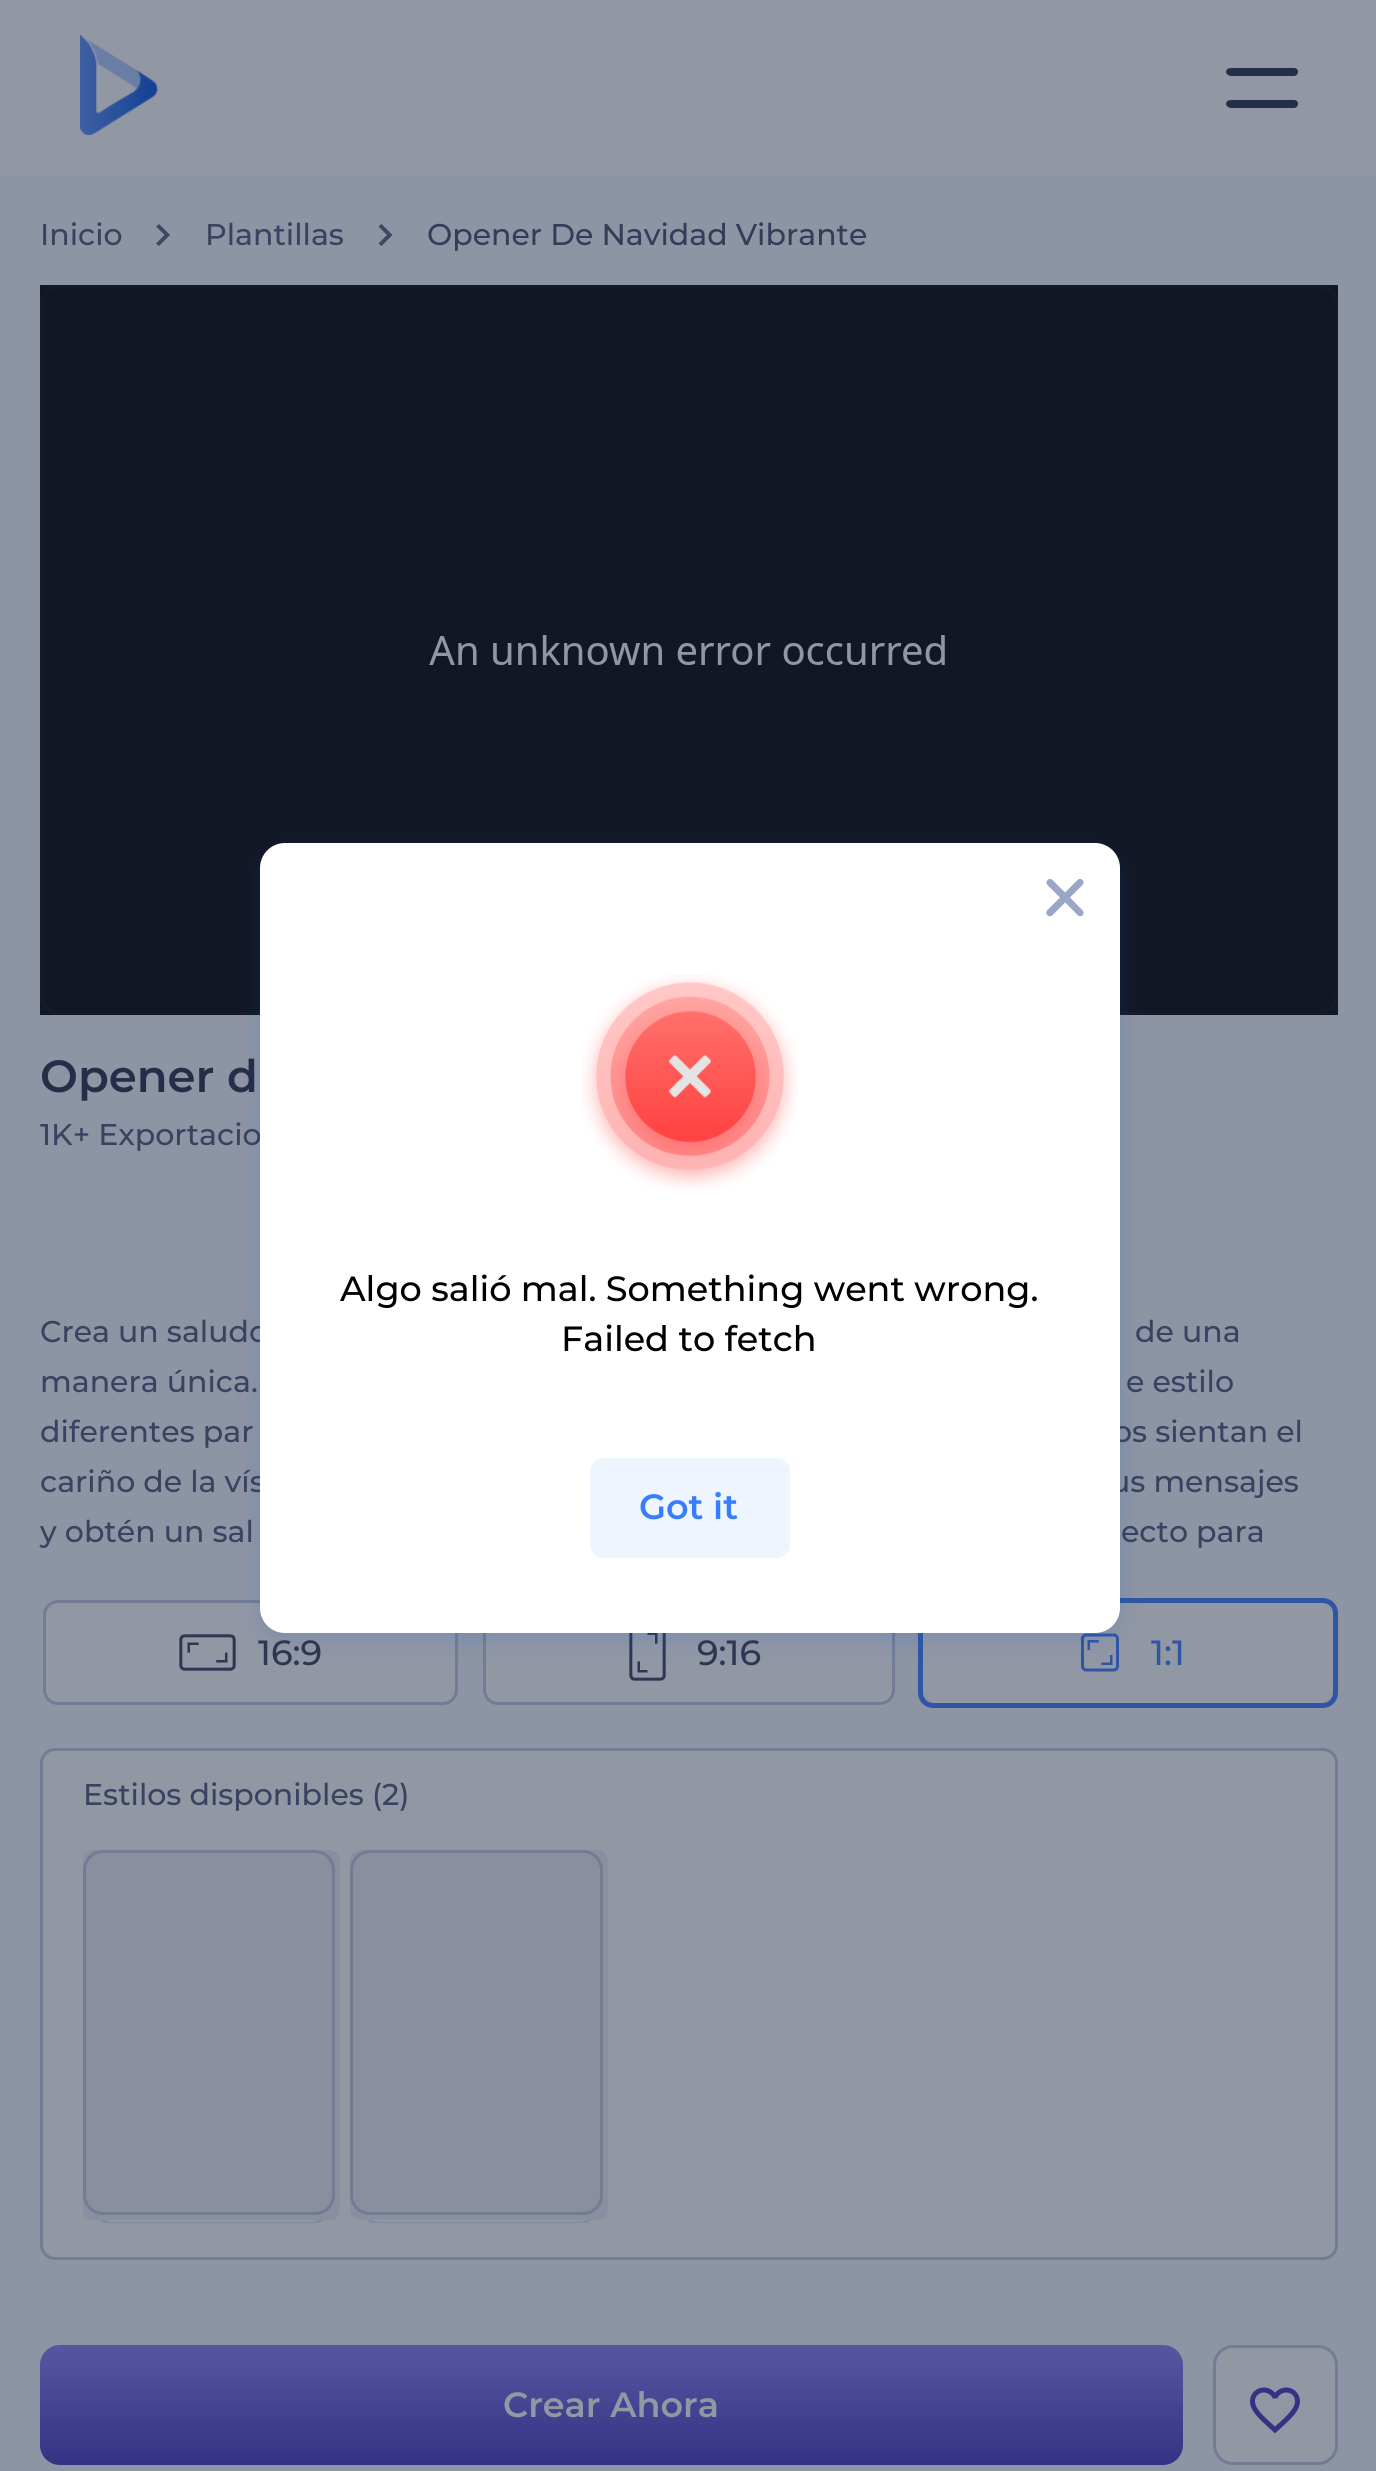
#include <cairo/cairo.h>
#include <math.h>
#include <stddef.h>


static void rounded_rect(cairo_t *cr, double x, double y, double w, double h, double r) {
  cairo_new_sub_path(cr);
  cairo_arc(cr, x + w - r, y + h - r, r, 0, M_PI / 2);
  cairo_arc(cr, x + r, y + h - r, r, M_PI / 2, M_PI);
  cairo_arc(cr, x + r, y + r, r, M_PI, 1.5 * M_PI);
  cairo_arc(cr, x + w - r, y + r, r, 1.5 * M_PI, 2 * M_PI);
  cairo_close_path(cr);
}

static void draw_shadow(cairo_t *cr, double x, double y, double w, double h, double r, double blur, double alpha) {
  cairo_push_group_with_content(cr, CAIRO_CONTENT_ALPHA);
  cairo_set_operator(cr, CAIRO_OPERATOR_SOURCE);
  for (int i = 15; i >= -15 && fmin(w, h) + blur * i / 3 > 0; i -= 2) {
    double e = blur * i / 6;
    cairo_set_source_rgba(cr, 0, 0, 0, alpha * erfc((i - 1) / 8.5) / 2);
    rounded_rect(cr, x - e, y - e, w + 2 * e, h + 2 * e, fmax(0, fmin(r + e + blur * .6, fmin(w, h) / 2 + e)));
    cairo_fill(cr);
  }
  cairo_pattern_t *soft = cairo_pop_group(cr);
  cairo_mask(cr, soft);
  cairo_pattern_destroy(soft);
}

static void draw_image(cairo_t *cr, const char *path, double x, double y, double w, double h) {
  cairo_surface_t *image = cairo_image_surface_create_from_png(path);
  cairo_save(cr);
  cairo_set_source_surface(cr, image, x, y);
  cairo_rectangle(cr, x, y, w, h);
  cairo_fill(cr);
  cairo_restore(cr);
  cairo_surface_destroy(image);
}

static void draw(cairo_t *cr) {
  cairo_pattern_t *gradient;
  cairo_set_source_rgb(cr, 146 / 255.0, 151 / 255.0, 164 / 255.0);
  cairo_paint(cr);
  draw_image(cr, "images/1.png", 80, 34, 78, 101);
  cairo_set_source_rgb(cr, 37 / 255.0, 46 / 255.0, 72 / 255.0);
  cairo_new_path(cr);
  cairo_move_to(cr, 1231, 68);
  cairo_line_to(cr, 1294, 68);
  cairo_curve_to(cr, 1296, 68, 1298, 69, 1298, 72);
  cairo_curve_to(cr, 1298, 74, 1296, 76, 1294, 76);
  cairo_line_to(cr, 1231, 76);
  cairo_curve_to(cr, 1229, 76, 1226, 74, 1226, 72);
  cairo_curve_to(cr, 1226, 69, 1229, 68, 1231, 68);
  cairo_close_path(cr);
  cairo_fill(cr);
  cairo_new_path(cr);
  cairo_move_to(cr, 1231, 100);
  cairo_line_to(cr, 1294, 100);
  cairo_curve_to(cr, 1296, 100, 1298, 101, 1298, 104);
  cairo_curve_to(cr, 1298, 106, 1296, 108, 1294, 108);
  cairo_line_to(cr, 1231, 108);
  cairo_curve_to(cr, 1229, 108, 1226, 106, 1226, 104);
  cairo_curve_to(cr, 1226, 101, 1229, 100, 1231, 100);
  cairo_close_path(cr);
  cairo_fill(cr);
  cairo_set_source_rgb(cr, 141 / 255.0, 148 / 255.0, 163 / 255.0);
  cairo_rectangle(cr, 0, 175, 1376, 2296);
  cairo_fill(cr);
  cairo_set_source_rgb(cr, 61 / 255.0, 71 / 255.0, 99 / 255.0);
  cairo_new_path(cr);
  cairo_move_to(cr, 156, 226.5);
  cairo_line_to(cr, 164.5, 235);
  cairo_line_to(cr, 156, 243.5);
  cairo_line_to(cr, 159, 246);
  cairo_line_to(cr, 170, 235);
  cairo_line_to(cr, 159, 224);
  cairo_close_path(cr);
  cairo_fill(cr);
  cairo_new_path(cr);
  cairo_move_to(cr, 378.5, 226.5);
  cairo_line_to(cr, 387, 235);
  cairo_line_to(cr, 378.5, 243.5);
  cairo_line_to(cr, 381.5, 246);
  cairo_line_to(cr, 392.5, 235);
  cairo_line_to(cr, 381.5, 224);
  cairo_close_path(cr);
  cairo_fill(cr);
  draw_image(cr, "images/2.png", 40, 285, 1298, 730);
  rounded_rect(cr, 41.5, 286.5, 1295, 727, 18.5);
  cairo_set_source_rgb(cr, 21 / 255.0, 26 / 255.0, 41 / 255.0);
  cairo_set_line_width(cr, 3);
  cairo_stroke(cr);
  cairo_set_source_rgb(cr, 146 / 255.0, 151 / 255.0, 164 / 255.0);
  rounded_rect(cr, 45, 1603, 410, 100, 15);
  cairo_fill(cr);
  draw_image(cr, "images/3.png", 179, 1634, 57, 37);
  rounded_rect(cr, 44.5, 1601.5, 412, 102, 13.5);
  cairo_set_source_rgb(cr, 115 / 255.0, 124 / 255.0, 148 / 255.0);
  cairo_stroke(cr);
  cairo_set_source_rgb(cr, 146 / 255.0, 151 / 255.0, 164 / 255.0);
  rounded_rect(cr, 485, 1603, 408, 100, 15);
  cairo_fill(cr);
  draw_image(cr, "images/4.png", 629, 1633, 37, 48);
  rounded_rect(cr, 484.5, 1601.5, 409, 102, 13.5);
  cairo_set_source_rgb(cr, 115 / 255.0, 124 / 255.0, 148 / 255.0);
  cairo_stroke(cr);
  cairo_set_source_rgb(cr, 146 / 255.0, 151 / 255.0, 164 / 255.0);
  rounded_rect(cr, 923, 1603, 410, 100, 15);
  cairo_fill(cr);
  draw_image(cr, "images/5.png", 1081, 1633, 38, 39);
  rounded_rect(cr, 920.5, 1600.5, 415, 105, 12.5);
  cairo_set_source_rgb(cr, 47 / 255.0, 86 / 255.0, 164 / 255.0);
  cairo_set_line_width(cr, 5);
  cairo_stroke(cr);
  cairo_set_source_rgb(cr, 146 / 255.0, 151 / 255.0, 164 / 255.0);
  rounded_rect(cr, 41.5, 1749.5, 1295, 509, 13.5);
  cairo_fill_preserve(cr);
  cairo_set_source_rgb(cr, 115 / 255.0, 124 / 255.0, 148 / 255.0);
  cairo_set_line_width(cr, 3);
  cairo_stroke(cr);
  cairo_set_source_rgb(cr, 129 / 255.0, 137 / 255.0, 156 / 255.0);
  cairo_new_path(cr);
  cairo_move_to(cr, 104, 2223);
  cairo_curve_to(cr, 98, 2220, 93, 2213, 93, 2205);
  cairo_line_to(cr, 93, 1865);
  cairo_curve_to(cr, 93, 1859, 96, 1854, 100, 1850);
  cairo_line_to(cr, 105, 1850);
  cairo_curve_to(cr, 100, 1853, 96, 1859, 96, 1865);
  cairo_line_to(cr, 96, 2205);
  cairo_curve_to(cr, 96, 2214, 104, 2222, 113, 2222);
  cairo_line_to(cr, 310, 2222);
  cairo_curve_to(cr, 319, 2222, 327, 2214, 327, 2205);
  cairo_line_to(cr, 327, 1865);
  cairo_curve_to(cr, 327, 1859, 323, 1853, 318, 1850);
  cairo_line_to(cr, 323, 1850);
  cairo_curve_to(cr, 327, 1854, 330, 1859, 330, 1865);
  cairo_line_to(cr, 330, 2205);
  cairo_curve_to(cr, 330, 2213, 325, 2220, 319, 2223);
  cairo_close_path(cr);
  cairo_fill(cr);
  cairo_set_source_rgb(cr, 137 / 255.0, 143 / 255.0, 159 / 255.0);
  rounded_rect(cr, 83, 1850, 257, 370, 10);
  cairo_fill(cr);
  rounded_rect(cr, 84.5, 1851.5, 249, 362, 18.5);
  cairo_set_source_rgb(cr, 115 / 255.0, 124 / 255.0, 148 / 255.0);
  cairo_stroke(cr);
  cairo_set_source_rgb(cr, 129 / 255.0, 137 / 255.0, 156 / 255.0);
  cairo_new_path(cr);
  cairo_move_to(cr, 371, 2223);
  cairo_curve_to(cr, 365, 2220, 360, 2213, 360, 2205);
  cairo_line_to(cr, 360, 1865);
  cairo_curve_to(cr, 360, 1859, 363, 1854, 367, 1850);
  cairo_line_to(cr, 372, 1850);
  cairo_curve_to(cr, 367, 1853, 363, 1859, 363, 1865);
  cairo_line_to(cr, 363, 2205);
  cairo_curve_to(cr, 363, 2214, 371, 2222, 380, 2222);
  cairo_line_to(cr, 578, 2222);
  cairo_curve_to(cr, 587, 2222, 595, 2214, 595, 2205);
  cairo_line_to(cr, 595, 1865);
  cairo_curve_to(cr, 595, 1859, 591, 1853, 586, 1850);
  cairo_line_to(cr, 591, 1850);
  cairo_curve_to(cr, 595, 1854, 598, 1859, 598, 1865);
  cairo_line_to(cr, 598, 2205);
  cairo_curve_to(cr, 598, 2213, 593, 2220, 587, 2223);
  cairo_close_path(cr);
  cairo_fill(cr);
  cairo_set_source_rgb(cr, 137 / 255.0, 143 / 255.0, 159 / 255.0);
  rounded_rect(cr, 350, 1850, 258, 370, 10);
  cairo_fill(cr);
  rounded_rect(cr, 351.5, 1851.5, 250, 362, 18.5);
  cairo_set_source_rgb(cr, 115 / 255.0, 124 / 255.0, 148 / 255.0);
  cairo_stroke(cr);
  gradient = cairo_pattern_create_linear(611, 2345, 611, 2465);
  cairo_pattern_add_color_stop_rgba(gradient, 0, 87 / 255.0, 87 / 255.0, 160 / 255.0, 1);
  cairo_pattern_add_color_stop_rgba(gradient, 1, 51 / 255.0, 50 / 255.0, 133 / 255.0, 1);
  cairo_set_source(cr, gradient);
  cairo_pattern_destroy(gradient);
  rounded_rect(cr, 40, 2345, 1143, 120, 20);
  cairo_fill(cr);
  cairo_set_source_rgb(cr, 146 / 255.0, 151 / 255.0, 164 / 255.0);
  rounded_rect(cr, 1214.5, 2346.5, 122, 117, 18.5);
  cairo_fill_preserve(cr);
  cairo_set_source_rgb(cr, 115 / 255.0, 124 / 255.0, 148 / 255.0);
  cairo_stroke(cr);
  draw_image(cr, "images/6.png", 1250, 2387, 50, 47);
  cairo_set_source_rgb(cr, 0, 82 / 255.0, 224 / 255.0);
  draw_shadow(cr, 260, 850, 860, 790, 25, 12.5, 0.15);
  cairo_select_font_face(cr, "Montserrat Medium", CAIRO_FONT_SLANT_NORMAL, CAIRO_FONT_WEIGHT_NORMAL);
  cairo_set_font_size(cr, 30);
  cairo_set_source_rgb(cr, 58 / 255.0, 66 / 255.0, 97 / 255.0);
  cairo_move_to(cr, 40, 245);
  cairo_show_text(cr, "Inicio");
  cairo_move_to(cr, 205, 245);
  cairo_show_text(cr, "Plantillas");
  cairo_set_source_rgb(cr, 51 / 255.0, 61 / 255.0, 90 / 255.0);
  cairo_move_to(cr, 427, 245);
  cairo_show_text(cr, "Opener De Navidad Vibrante");
  cairo_select_font_face(cr, "Montserrat SemiBold", CAIRO_FONT_SLANT_NORMAL, CAIRO_FONT_WEIGHT_NORMAL);
  cairo_set_font_size(cr, 45);
  cairo_set_source_rgb(cr, 37 / 255.0, 46 / 255.0, 72 / 255.0);
  cairo_move_to(cr, 40, 1092);
  cairo_show_text(cr, "Opener d");
  cairo_select_font_face(cr, "Montserrat Medium", CAIRO_FONT_SLANT_NORMAL, CAIRO_FONT_WEIGHT_NORMAL);
  cairo_set_font_size(cr, 30);
  cairo_set_source_rgb(cr, 58 / 255.0, 66 / 255.0, 97 / 255.0);
  cairo_move_to(cr, 40, 1145);
  cairo_show_text(cr, "1K+ Exportacio");
  cairo_move_to(cr, 40, 1342);
  cairo_show_text(cr, "Crea un saludo");
  cairo_move_to(cr, 1135, 1342);
  cairo_show_text(cr, "de una");
  cairo_move_to(cr, 40, 1392);
  cairo_show_text(cr, "manera única.");
  cairo_move_to(cr, 1126, 1392);
  cairo_show_text(cr, "e estilo");
  cairo_move_to(cr, 40, 1442);
  cairo_show_text(cr, "diferentes par");
  cairo_move_to(cr, 1113, 1442);
  cairo_show_text(cr, "os sientan el");
  cairo_move_to(cr, 40, 1492);
  cairo_show_text(cr, "cariño de la vís");
  cairo_move_to(cr, 1110, 1492);
  cairo_show_text(cr, "us mensajes");
  cairo_move_to(cr, 40, 1542);
  cairo_show_text(cr, "y obtén un sal");
  cairo_move_to(cr, 1121, 1542);
  cairo_show_text(cr, "ecto para");
  cairo_set_font_size(cr, 35);
  cairo_set_source_rgb(cr, 46 / 255.0, 55 / 255.0, 81 / 255.0);
  cairo_move_to(cr, 258, 1665);
  cairo_show_text(cr, "16:9");
  cairo_move_to(cr, 697, 1665);
  cairo_show_text(cr, "9:16");
  cairo_set_source_rgb(cr, 47 / 255.0, 86 / 255.0, 164 / 255.0);
  cairo_move_to(cr, 1151, 1665);
  cairo_show_text(cr, "1:1");
  cairo_set_font_size(cr, 30);
  cairo_set_source_rgb(cr, 58 / 255.0, 66 / 255.0, 97 / 255.0);
  cairo_move_to(cr, 83, 1805);
  cairo_show_text(cr, "Estilos disponibles (2)");
  cairo_select_font_face(cr, "Montserrat SemiBold", CAIRO_FONT_SLANT_NORMAL, CAIRO_FONT_WEIGHT_NORMAL);
  cairo_set_font_size(cr, 35);
  cairo_set_source_rgb(cr, 146 / 255.0, 151 / 255.0, 164 / 255.0);
  cairo_move_to(cr, 503, 2417);
  cairo_show_text(cr, "Crear Ahora");
  cairo_set_source_rgb(cr, 1, 1, 1);
  rounded_rect(cr, 260, 843, 860, 790, 25);
  cairo_fill(cr);
  draw_image(cr, "images/7.png", 1046, 879, 38, 38);
  draw_image(cr, "images/8.png", 582, 974, 216, 216);
  cairo_select_font_face(cr, "Montserrat Medium", CAIRO_FONT_SLANT_NORMAL, CAIRO_FONT_WEIGHT_NORMAL);
  cairo_set_source_rgb(cr, 0, 0, 0);
  cairo_move_to(cr, 340, 1301);
  cairo_show_text(cr, "Algo salió mal. Something went wrong.");
  cairo_move_to(cr, 561, 1351);
  cairo_show_text(cr, "Failed to fetch");
  cairo_set_source_rgb(cr, 238 / 255.0, 245 / 255.0, 1);
  rounded_rect(cr, 590, 1458, 200, 100, 13);
  cairo_fill(cr);
  cairo_select_font_face(cr, "Montserrat SemiBold", CAIRO_FONT_SLANT_NORMAL, CAIRO_FONT_WEIGHT_NORMAL);
  cairo_set_source_rgb(cr, 56 / 255.0, 125 / 255.0, 1);
  cairo_move_to(cr, 639, 1519);
  cairo_show_text(cr, "Got it");
}

int main(void) {
  cairo_surface_t *surface = cairo_image_surface_create(CAIRO_FORMAT_RGB24, 1376, 2471);
  cairo_t *cr = cairo_create(surface);
  cairo_font_options_t *options = cairo_font_options_create();
  cairo_font_options_set_hint_metrics(options, CAIRO_HINT_METRICS_OFF);
  cairo_font_options_set_hint_style(options, CAIRO_HINT_STYLE_NONE);
  cairo_set_font_options(cr, options);
  cairo_set_miter_limit(cr, 4);
  draw(cr);
  cairo_surface_write_to_png(surface, "out.png");
  cairo_font_options_destroy(options);
  cairo_destroy(cr);
  cairo_surface_destroy(surface);
  return 0;
}
